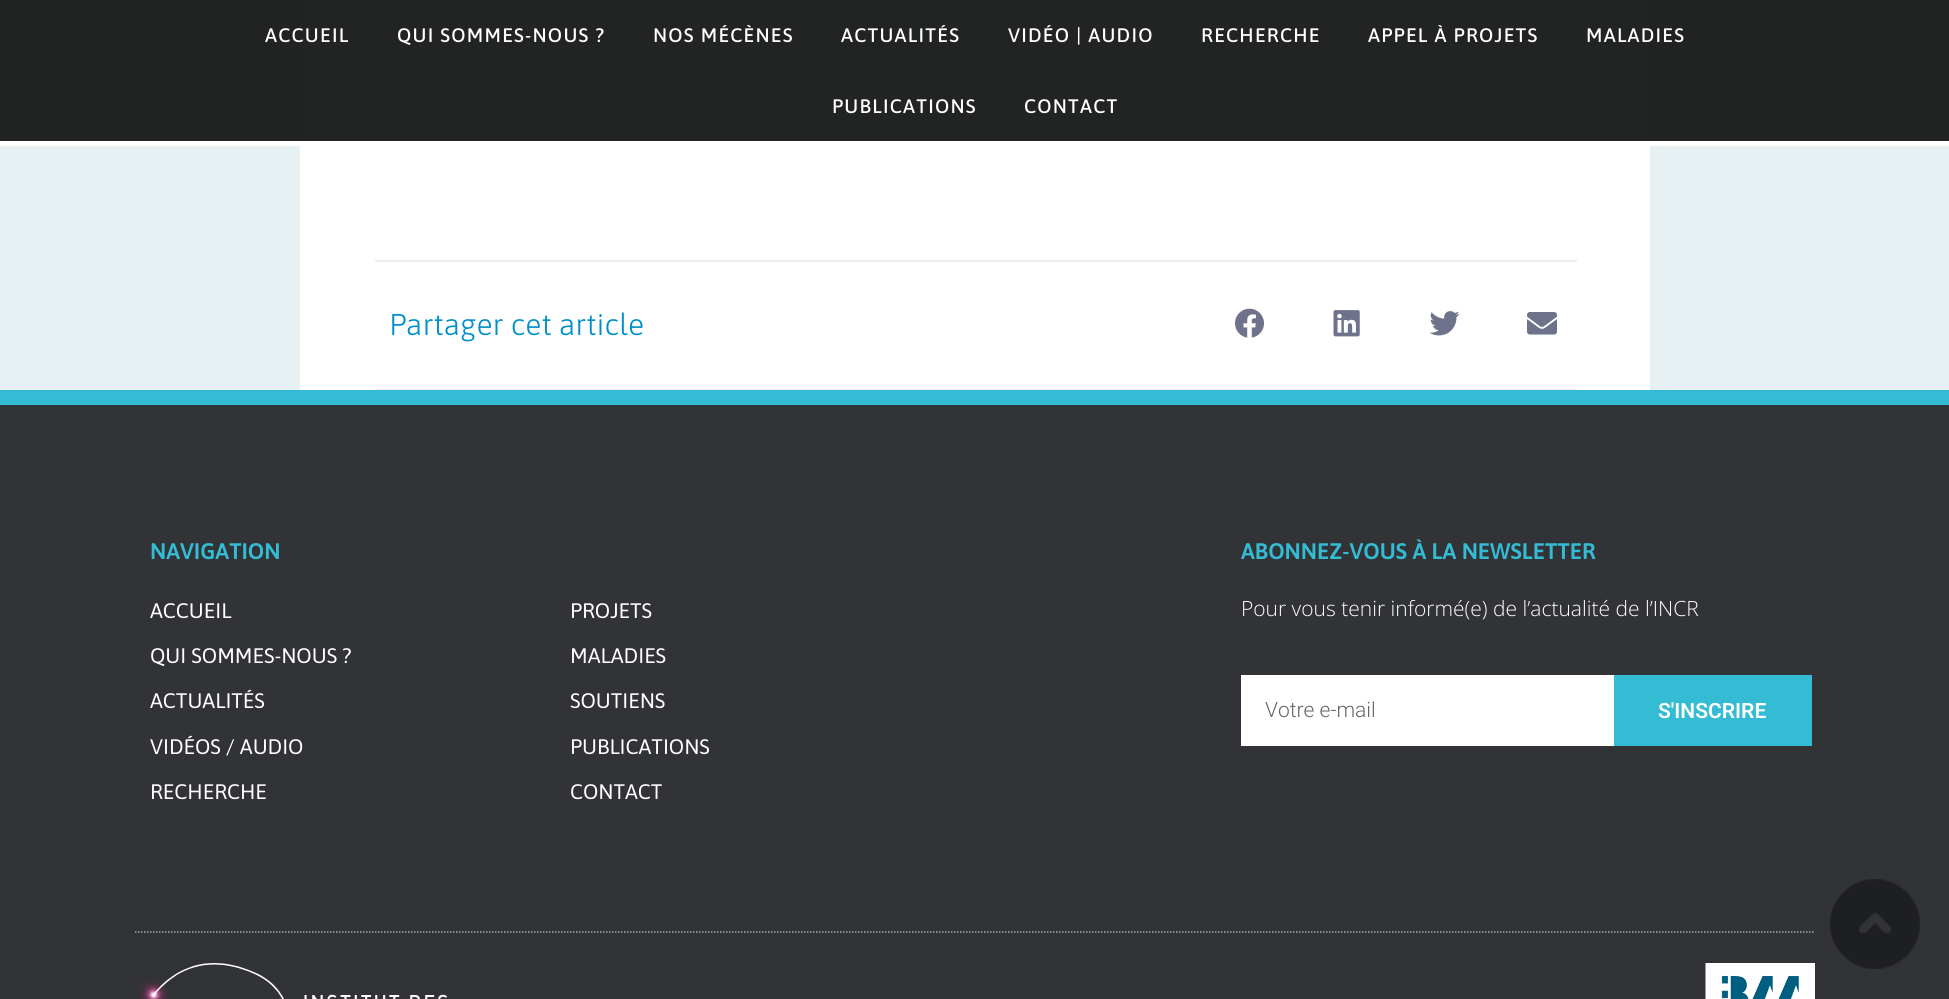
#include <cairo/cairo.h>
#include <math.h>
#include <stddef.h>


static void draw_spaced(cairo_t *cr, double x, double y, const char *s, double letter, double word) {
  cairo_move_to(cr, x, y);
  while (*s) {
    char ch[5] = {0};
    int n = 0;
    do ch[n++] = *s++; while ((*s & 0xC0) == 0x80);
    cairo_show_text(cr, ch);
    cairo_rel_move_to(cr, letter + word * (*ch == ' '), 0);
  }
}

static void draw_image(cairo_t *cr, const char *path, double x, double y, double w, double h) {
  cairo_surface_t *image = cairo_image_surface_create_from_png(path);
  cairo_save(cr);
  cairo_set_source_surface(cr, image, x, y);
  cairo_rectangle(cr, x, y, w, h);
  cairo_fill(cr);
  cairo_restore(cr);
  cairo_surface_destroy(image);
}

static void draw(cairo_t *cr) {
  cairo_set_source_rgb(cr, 1, 1, 1);
  cairo_paint(cr);
  cairo_set_source_rgb(cr, 231 / 255.0, 241 / 255.0, 244 / 255.0);
  cairo_rectangle(cr, 1650, 0, 299, 390);
  cairo_fill(cr);
  cairo_rectangle(cr, 0, 0, 300, 390);
  cairo_fill(cr);
  cairo_set_source_rgba(cr, 21 / 255.0, 22 / 255.0, 22 / 255.0, 0.94);
  cairo_rectangle(cr, 0, 0, 1949, 141);
  cairo_fill(cr);
  cairo_set_source_rgb(cr, 1, 1, 1);
  cairo_rectangle(cr, 0, 141, 1949, 5);
  cairo_fill(cr);
  cairo_set_source_rgb(cr, 236 / 255.0, 237 / 255.0, 239 / 255.0);
  cairo_rectangle(cr, 375, 260, 1202, 2);
  cairo_fill(cr);
  cairo_rectangle(cr, 375, 389, 1202, 1);
  cairo_fill(cr);
  draw_image(cr, "images/1.png", 1235, 308, 29, 30);
  draw_image(cr, "images/2.png", 1333, 310, 27, 27);
  draw_image(cr, "images/3.png", 1429, 311, 31, 25);
  draw_image(cr, "images/4.png", 1527, 312, 30, 23);
  cairo_set_source_rgb(cr, 50 / 255.0, 51 / 255.0, 54 / 255.0);
  cairo_rectangle(cr, 0, 405, 1949, 594);
  cairo_fill(cr);
  cairo_set_source_rgb(cr, 52 / 255.0, 188 / 255.0, 213 / 255.0);
  cairo_rectangle(cr, 0, 390, 1949, 15);
  cairo_fill(cr);
  cairo_set_source_rgb(cr, 1, 1, 1);
  cairo_rectangle(cr, 1241, 675, 373, 71);
  cairo_fill(cr);
  cairo_set_source_rgb(cr, 52 / 255.0, 188 / 255.0, 213 / 255.0);
  cairo_rectangle(cr, 1614, 675, 198, 71);
  cairo_fill(cr);
  cairo_new_path(cr);
  cairo_move_to(cr, 135, 932);
  cairo_line_to(cr, 1815, 932);
  cairo_set_source_rgb(cr, 165 / 255.0, 165 / 255.0, 167 / 255.0);
  cairo_set_line_width(cr, 1.5);
  cairo_set_dash(cr, (double[]){1.5, 1.5}, 2, 0);
  cairo_stroke(cr);
  draw_image(cr, "images/5.png", 139, 963, 309, 36);
  draw_image(cr, "images/6.png", 1705, 963, 110, 36);
  draw_image(cr, "images/7.png", 1830, 879, 90, 90);
  cairo_select_font_face(cr, "Asap Medium", CAIRO_FONT_SLANT_NORMAL, CAIRO_FONT_WEIGHT_NORMAL);
  cairo_set_font_size(cr, 19.5);
  cairo_set_source_rgb(cr, 1, 1, 1);
  draw_spaced(cr, 265, 42, "ACCUEIL", 1.25, 0);
  draw_spaced(cr, 397, 42, "QUI SOMMES-NOUS ?", 1.25, 0);
  draw_spaced(cr, 653, 42, "NOS MÉCÈNES", 1.25, 0);
  draw_spaced(cr, 841, 42, "ACTUALITÉS", 1.25, 0);
  draw_spaced(cr, 1008, 42, "VIDÉO | AUDIO", 1.25, 0);
  draw_spaced(cr, 1201, 42, "RECHERCHE", 1.25, 0);
  draw_spaced(cr, 1368, 42, "APPEL À PROJETS", 1.25, 0);
  draw_spaced(cr, 1586, 42, "MALADIES", 1.25, 0);
  draw_spaced(cr, 832, 113, "PUBLICATIONS", 1.25, 0);
  draw_spaced(cr, 1024, 113, "CONTACT", 1.25, 0);
  cairo_select_font_face(cr, "Asap Light", CAIRO_FONT_SLANT_NORMAL, CAIRO_FONT_WEIGHT_NORMAL);
  cairo_set_font_size(cr, 30);
  cairo_set_source_rgb(cr, 0, 144 / 255.0, 201 / 255.0);
  cairo_move_to(cr, 389, 335);
  cairo_show_text(cr, "Partager cet article");
  cairo_select_font_face(cr, "Asap SemiBold", CAIRO_FONT_SLANT_NORMAL, CAIRO_FONT_WEIGHT_NORMAL);
  cairo_set_font_size(cr, 22.5);
  cairo_set_source_rgb(cr, 52 / 255.0, 188 / 255.0, 213 / 255.0);
  cairo_move_to(cr, 150, 559);
  cairo_show_text(cr, "NAVIGATION");
  cairo_select_font_face(cr, "Asap", CAIRO_FONT_SLANT_NORMAL, CAIRO_FONT_WEIGHT_NORMAL);
  cairo_set_font_size(cr, 21);
  cairo_set_source_rgb(cr, 1, 1, 1);
  cairo_move_to(cr, 150, 618);
  cairo_show_text(cr, "ACCUEIL");
  cairo_move_to(cr, 150, 663);
  cairo_show_text(cr, "QUI SOMMES-NOUS ?");
  cairo_move_to(cr, 150, 708);
  cairo_show_text(cr, "ACTUALITÉS");
  cairo_move_to(cr, 150, 754);
  cairo_show_text(cr, "VIDÉOS / AUDIO");
  cairo_move_to(cr, 150, 799);
  cairo_show_text(cr, "RECHERCHE");
  cairo_move_to(cr, 570, 618);
  cairo_show_text(cr, "PROJETS");
  cairo_move_to(cr, 570, 663);
  cairo_show_text(cr, "MALADIES");
  cairo_move_to(cr, 570, 708);
  cairo_show_text(cr, "SOUTIENS");
  cairo_move_to(cr, 570, 754);
  cairo_show_text(cr, "PUBLICATIONS");
  cairo_move_to(cr, 570, 799);
  cairo_show_text(cr, "CONTACT");
  cairo_select_font_face(cr, "Asap SemiBold", CAIRO_FONT_SLANT_NORMAL, CAIRO_FONT_WEIGHT_NORMAL);
  cairo_set_font_size(cr, 22.5);
  cairo_set_source_rgb(cr, 52 / 255.0, 188 / 255.0, 213 / 255.0);
  cairo_move_to(cr, 1241, 559);
  cairo_show_text(cr, "ABONNEZ-VOUS À LA NEWSLETTER");
  cairo_select_font_face(cr, "Open Sans Light", CAIRO_FONT_SLANT_NORMAL, CAIRO_FONT_WEIGHT_NORMAL);
  cairo_set_font_size(cr, 21);
  cairo_set_source_rgb(cr, 1, 1, 1);
  cairo_move_to(cr, 1241, 616);
  cairo_show_text(cr, "Pour vous tenir informé(e) de l’actualité de l’INCR");
  cairo_select_font_face(cr, "Roboto Light", CAIRO_FONT_SLANT_NORMAL, CAIRO_FONT_WEIGHT_NORMAL);
  cairo_set_source_rgb(cr, 102 / 255.0, 102 / 255.0, 102 / 255.0);
  cairo_move_to(cr, 1265, 717);
  cairo_show_text(cr, "Votre e-mail");
  cairo_select_font_face(cr, "Roboto SemiBold", CAIRO_FONT_SLANT_NORMAL, CAIRO_FONT_WEIGHT_NORMAL);
  cairo_set_source_rgb(cr, 1, 1, 1);
  cairo_move_to(cr, 1658, 718);
  cairo_show_text(cr, "S'INSCRIRE");
}

int main(void) {
  cairo_surface_t *surface = cairo_image_surface_create(CAIRO_FORMAT_RGB24, 1949, 999);
  cairo_t *cr = cairo_create(surface);
  cairo_font_options_t *options = cairo_font_options_create();
  cairo_font_options_set_hint_metrics(options, CAIRO_HINT_METRICS_OFF);
  cairo_font_options_set_hint_style(options, CAIRO_HINT_STYLE_NONE);
  cairo_set_font_options(cr, options);
  cairo_set_miter_limit(cr, 4);
  draw(cr);
  cairo_surface_write_to_png(surface, "out.png");
  cairo_font_options_destroy(options);
  cairo_destroy(cr);
  cairo_surface_destroy(surface);
  return 0;
}
